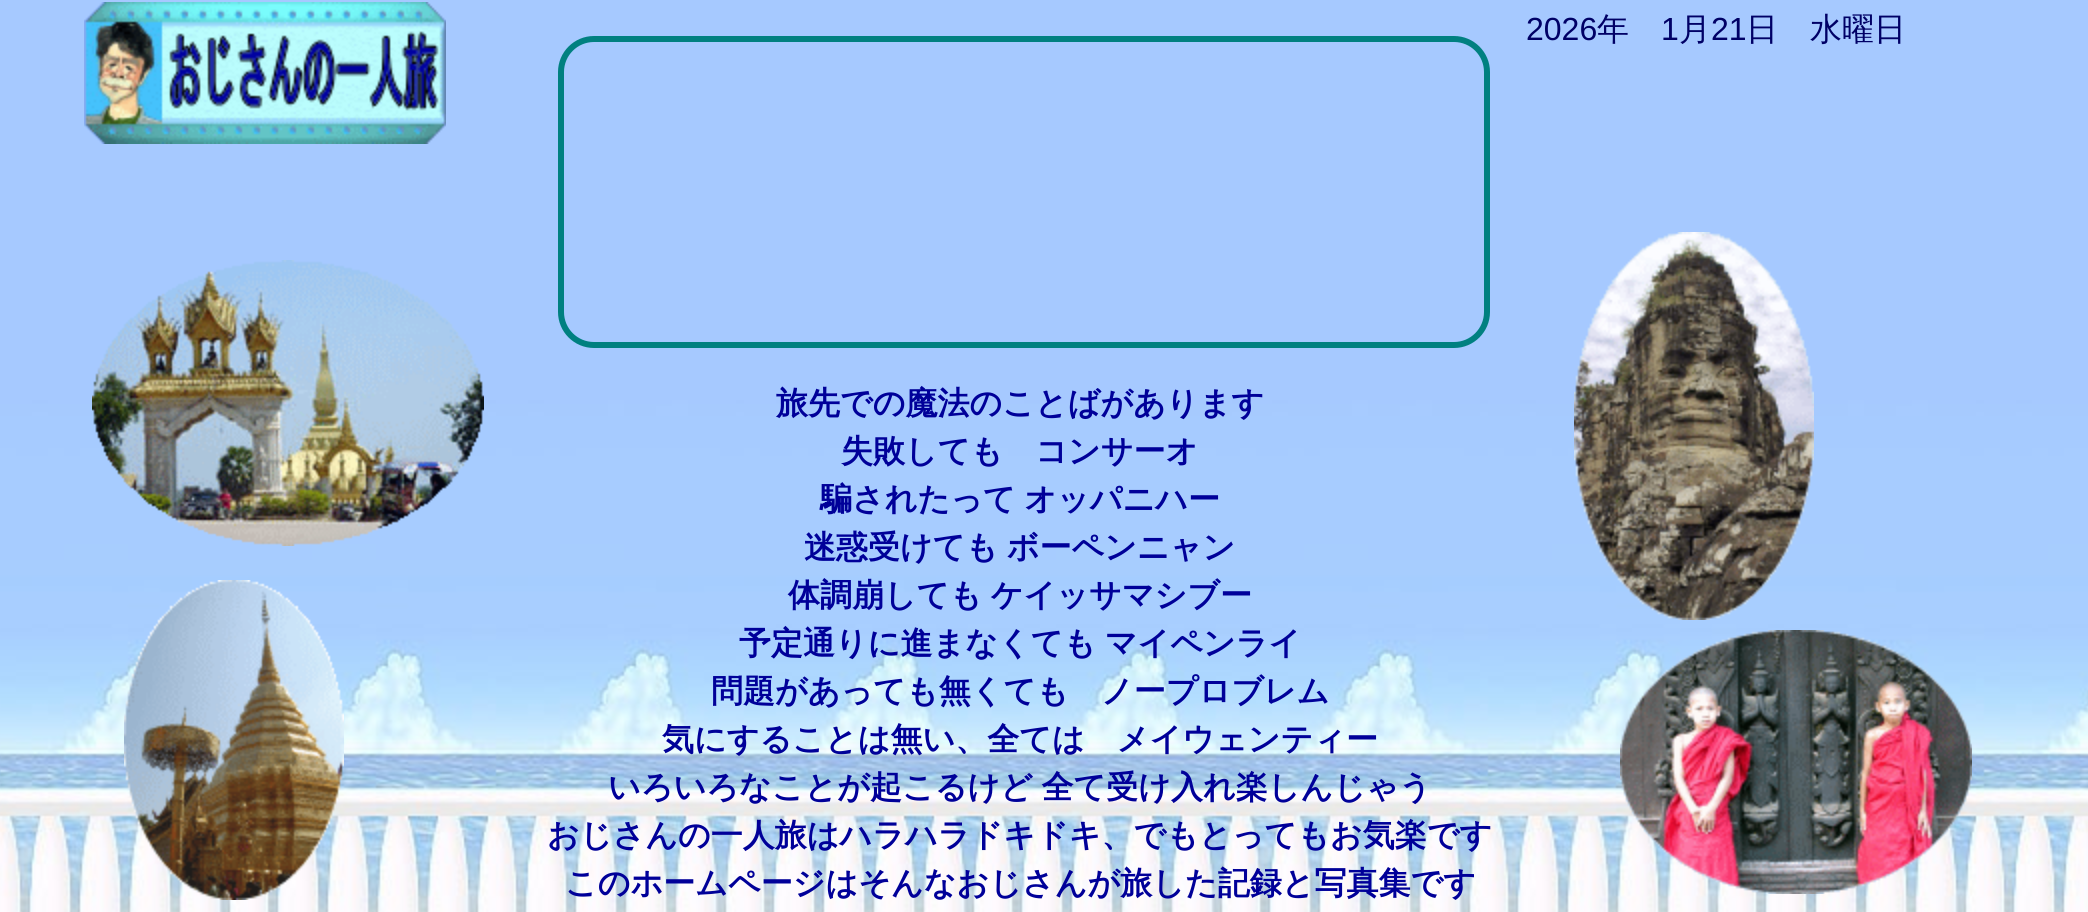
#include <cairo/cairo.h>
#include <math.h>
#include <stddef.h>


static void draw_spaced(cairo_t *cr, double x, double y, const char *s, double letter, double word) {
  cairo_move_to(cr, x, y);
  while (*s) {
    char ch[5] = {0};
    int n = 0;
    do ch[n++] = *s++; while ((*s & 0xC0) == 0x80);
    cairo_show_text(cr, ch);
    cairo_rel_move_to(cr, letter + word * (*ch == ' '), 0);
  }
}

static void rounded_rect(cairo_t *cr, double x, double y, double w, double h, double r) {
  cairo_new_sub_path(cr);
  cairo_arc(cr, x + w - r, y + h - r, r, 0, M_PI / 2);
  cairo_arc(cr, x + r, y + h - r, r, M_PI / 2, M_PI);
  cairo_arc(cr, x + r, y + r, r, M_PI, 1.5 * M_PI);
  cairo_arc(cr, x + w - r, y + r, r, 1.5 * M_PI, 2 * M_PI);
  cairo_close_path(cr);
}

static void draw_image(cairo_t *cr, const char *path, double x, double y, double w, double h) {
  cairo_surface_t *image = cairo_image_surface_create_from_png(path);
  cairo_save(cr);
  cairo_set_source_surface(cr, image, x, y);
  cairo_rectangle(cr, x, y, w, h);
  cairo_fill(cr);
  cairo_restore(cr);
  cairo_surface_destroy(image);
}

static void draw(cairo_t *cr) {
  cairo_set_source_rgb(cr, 1, 1, 1);
  cairo_paint(cr);
  draw_image(cr, "images/1.png", 0, 0, 2088, 912);
  draw_image(cr, "images/2.png", 84, 2, 362, 142);
  rounded_rect(cr, 561, 39, 926, 306, 33);
  cairo_set_source_rgb(cr, 0, 128 / 255.0, 128 / 255.0);
  cairo_set_line_width(cr, 6);
  cairo_stroke(cr);
  draw_image(cr, "images/3.png", 92, 260, 392, 286);
  draw_image(cr, "images/4.png", 1574, 232, 240, 388);
  draw_image(cr, "images/5.png", 124, 580, 220, 320);
  draw_image(cr, "images/6.png", 1620, 630, 352, 264);
  cairo_select_font_face(cr, "Liberation Sans", CAIRO_FONT_SLANT_NORMAL, CAIRO_FONT_WEIGHT_NORMAL);
  cairo_set_font_size(cr, 32);
  cairo_set_source_rgb(cr, 0, 0, 102 / 255.0);
  cairo_move_to(cr, 1526, 40);
  cairo_show_text(cr, "2026");
  cairo_select_font_face(cr, "WenQuanYi Zen Hei Medium", CAIRO_FONT_SLANT_NORMAL, CAIRO_FONT_WEIGHT_NORMAL);
  cairo_move_to(cr, 1597, 40);
  cairo_show_text(cr, "年");
  cairo_select_font_face(cr, "Liberation Sans", CAIRO_FONT_SLANT_NORMAL, CAIRO_FONT_WEIGHT_NORMAL);
  cairo_move_to(cr, 1661, 40);
  cairo_show_text(cr, "1");
  cairo_select_font_face(cr, "WenQuanYi Zen Hei Medium", CAIRO_FONT_SLANT_NORMAL, CAIRO_FONT_WEIGHT_NORMAL);
  cairo_move_to(cr, 1679, 40);
  cairo_show_text(cr, "月");
  cairo_select_font_face(cr, "Liberation Sans", CAIRO_FONT_SLANT_NORMAL, CAIRO_FONT_WEIGHT_NORMAL);
  cairo_move_to(cr, 1711, 40);
  cairo_show_text(cr, "21");
  cairo_select_font_face(cr, "WenQuanYi Zen Hei Medium", CAIRO_FONT_SLANT_NORMAL, CAIRO_FONT_WEIGHT_NORMAL);
  cairo_move_to(cr, 1746, 40);
  cairo_show_text(cr, "日　水曜日");
  cairo_select_font_face(cr, "WenQuanYi Zen Hei", CAIRO_FONT_SLANT_NORMAL, CAIRO_FONT_WEIGHT_BOLD);
  cairo_set_source_rgb(cr, 0, 0, 153 / 255.0);
  cairo_move_to(cr, 776, 414);
  cairo_show_text(cr, "旅先での魔法のことばがあります");
  cairo_move_to(cr, 841, 462);
  cairo_show_text(cr, "失敗しても　コンサーオ");
  draw_spaced(cr, 820, 510, "騙されたって オッパニハー", 0, -1);
  draw_spaced(cr, 804, 558, "迷惑受けても ボーペンニャン", 0, -1);
  draw_spaced(cr, 788, 606, "体調崩しても ケイッサマシブー", 0, -1);
  draw_spaced(cr, 739, 654, "予定通りに進まなくても マイペンライ", 0, -1);
  cairo_move_to(cr, 711, 702);
  cairo_show_text(cr, "問題があっても無くても　ノープロブレム");
  cairo_move_to(cr, 662, 750);
  cairo_show_text(cr, "気にすることは無い、全ては　メイウェンティー");
  draw_spaced(cr, 608, 798, "いろいろなことが起こるけど 全て受け入れ楽しんじゃう", 0, -1);
  cairo_move_to(cr, 547, 846);
  cairo_show_text(cr, "おじさんの一人旅はハラハラドキドキ、でもとってもお気楽です");
  cairo_move_to(cr, 565, 894);
  cairo_show_text(cr, "このホームページはそんなおじさんが旅した記録と写真集です");
}

int main(void) {
  cairo_surface_t *surface = cairo_image_surface_create(CAIRO_FORMAT_RGB24, 2088, 912);
  cairo_t *cr = cairo_create(surface);
  cairo_font_options_t *options = cairo_font_options_create();
  cairo_font_options_set_hint_metrics(options, CAIRO_HINT_METRICS_OFF);
  cairo_font_options_set_hint_style(options, CAIRO_HINT_STYLE_NONE);
  cairo_set_font_options(cr, options);
  cairo_set_miter_limit(cr, 4);
  draw(cr);
  cairo_surface_write_to_png(surface, "out.png");
  cairo_font_options_destroy(options);
  cairo_destroy(cr);
  cairo_surface_destroy(surface);
  return 0;
}
